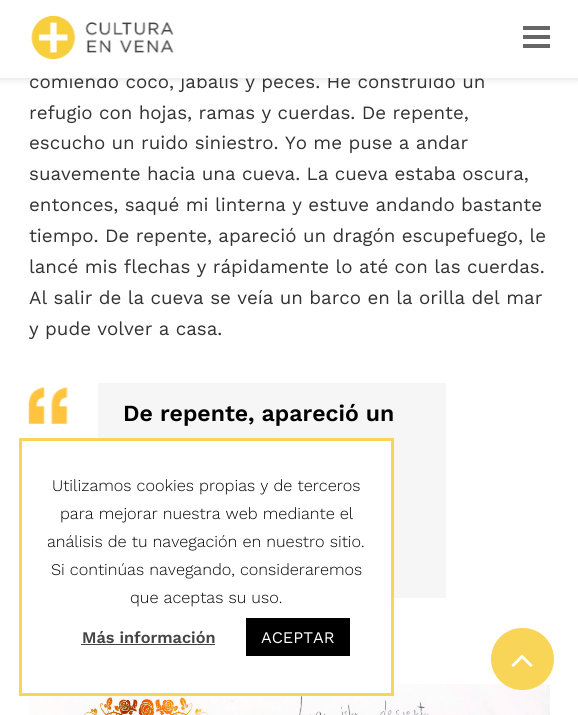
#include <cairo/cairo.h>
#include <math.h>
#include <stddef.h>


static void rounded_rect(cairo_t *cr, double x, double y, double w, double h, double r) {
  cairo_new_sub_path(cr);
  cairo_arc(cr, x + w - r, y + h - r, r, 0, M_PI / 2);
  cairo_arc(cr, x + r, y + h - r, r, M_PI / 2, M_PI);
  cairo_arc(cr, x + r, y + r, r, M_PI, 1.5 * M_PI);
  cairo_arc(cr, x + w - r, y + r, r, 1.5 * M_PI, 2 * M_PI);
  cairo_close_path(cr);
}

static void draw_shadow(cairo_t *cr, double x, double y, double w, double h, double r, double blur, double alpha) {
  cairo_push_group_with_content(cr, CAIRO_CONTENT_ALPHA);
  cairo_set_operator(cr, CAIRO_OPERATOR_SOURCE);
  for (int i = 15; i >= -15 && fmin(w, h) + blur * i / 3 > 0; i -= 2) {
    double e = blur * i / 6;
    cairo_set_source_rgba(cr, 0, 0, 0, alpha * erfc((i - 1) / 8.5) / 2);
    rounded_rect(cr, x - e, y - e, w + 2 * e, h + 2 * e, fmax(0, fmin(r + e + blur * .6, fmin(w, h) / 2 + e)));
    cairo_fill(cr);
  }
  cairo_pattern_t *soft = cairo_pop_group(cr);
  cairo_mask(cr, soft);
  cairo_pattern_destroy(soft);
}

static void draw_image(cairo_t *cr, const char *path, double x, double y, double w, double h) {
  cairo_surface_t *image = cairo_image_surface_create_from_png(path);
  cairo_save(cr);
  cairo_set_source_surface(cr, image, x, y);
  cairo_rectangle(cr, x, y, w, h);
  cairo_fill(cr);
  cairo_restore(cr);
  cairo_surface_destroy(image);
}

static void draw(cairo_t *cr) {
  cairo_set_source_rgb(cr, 1, 1, 1);
  cairo_paint(cr);
  cairo_set_source_rgb(cr, 0, 0, 0);
  draw_shadow(cr, 0, 3, 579, 77, 0, 3, 0.1);
  draw_image(cr, "images/2.png", 28, 387, 40, 37);
  cairo_set_source_rgb(cr, 246 / 255.0, 246 / 255.0, 246 / 255.0);
  cairo_rectangle(cr, 98, 383, 348, 215);
  cairo_fill(cr);
  draw_image(cr, "images/3.png", 29, 684, 521, 31);
  cairo_set_source_rgb(cr, 1, 1, 1);
  cairo_rectangle(cr, 29, 441, 362, 252);
  cairo_fill(cr);
  cairo_rectangle(cr, 20.5, 439.5, 372, 255);
  cairo_set_source_rgb(cr, 248 / 255.0, 212 / 255.0, 87 / 255.0);
  cairo_set_line_width(cr, 3);
  cairo_stroke(cr);
  cairo_set_source_rgb(cr, 68 / 255.0, 68 / 255.0, 68 / 255.0);
  cairo_rectangle(cr, 81, 644, 134, 1);
  cairo_fill(cr);
  cairo_set_source_rgb(cr, 0, 0, 0);
  cairo_rectangle(cr, 246, 618, 104, 38);
  cairo_fill(cr);
  cairo_set_source_rgb(cr, 248 / 255.0, 212 / 255.0, 87 / 255.0);
  rounded_rect(cr, 491, 628, 63, 62, 31);
  cairo_fill(cr);
  draw_image(cr, "images/4.png", 511, 654, 22, 13);
  cairo_select_font_face(cr, "Work Sans", CAIRO_FONT_SLANT_NORMAL, CAIRO_FONT_WEIGHT_NORMAL);
  cairo_set_font_size(cr, 18.75);
  cairo_set_source_rgb(cr, 51 / 255.0, 51 / 255.0, 51 / 255.0);
  cairo_move_to(cr, 29, 88);
  cairo_show_text(cr, "comiendo coco, jabalís y peces. He construido un");
  cairo_set_source_rgb(cr, 1, 1, 1);
  cairo_rectangle(cr, 0, 0, 578, 78);
  cairo_fill(cr);
  cairo_set_source_rgb(cr, 102 / 255.0, 102 / 255.0, 102 / 255.0);
  cairo_rectangle(cr, 523, 44, 27, 4);
  cairo_fill(cr);
  cairo_rectangle(cr, 523, 26, 27, 4);
  cairo_fill(cr);
  cairo_rectangle(cr, 523, 35, 27, 4);
  cairo_fill(cr);
  draw_image(cr, "images/1.png", 31, 15, 143, 45);
  cairo_set_source_rgb(cr, 51 / 255.0, 51 / 255.0, 51 / 255.0);
  cairo_move_to(cr, 29, 119);
  cairo_show_text(cr, "refugio con hojas, ramas y cuerdas. De repente,");
  cairo_move_to(cr, 29, 149);
  cairo_show_text(cr, "escucho un ruido siniestro. Yo me puse a andar");
  cairo_move_to(cr, 29, 180);
  cairo_show_text(cr, "suavemente hacia una cueva. La cueva estaba oscura,");
  cairo_move_to(cr, 29, 211);
  cairo_show_text(cr, "entonces, saqué mi linterna y estuve andando bastante");
  cairo_move_to(cr, 29, 242);
  cairo_show_text(cr, "tiempo. De repente, apareció un dragón escupefuego, le");
  cairo_move_to(cr, 29, 273);
  cairo_show_text(cr, "lancé mis flechas y rápidamente lo até con las cuerdas.");
  cairo_move_to(cr, 29, 304);
  cairo_show_text(cr, "Al salir de la cueva se veía un barco en la orilla del mar");
  cairo_move_to(cr, 29, 335);
  cairo_show_text(cr, "y pude volver a casa.");
  cairo_select_font_face(cr, "Work Sans SemiBold", CAIRO_FONT_SLANT_NORMAL, CAIRO_FONT_WEIGHT_NORMAL);
  cairo_set_font_size(cr, 23);
  cairo_set_source_rgb(cr, 0, 0, 0);
  cairo_move_to(cr, 123, 421);
  cairo_show_text(cr, "De repente, apareció un");
  cairo_select_font_face(cr, "Work Sans Light", CAIRO_FONT_SLANT_NORMAL, CAIRO_FONT_WEIGHT_NORMAL);
  cairo_set_font_size(cr, 16.25);
  cairo_move_to(cr, 52, 491);
  cairo_show_text(cr, "Utilizamos cookies propias y de terceros");
  cairo_move_to(cr, 60, 519);
  cairo_show_text(cr, "para mejorar nuestra web mediante el");
  cairo_move_to(cr, 47, 547);
  cairo_show_text(cr, "análisis de tu navegación en nuestro sitio.");
  cairo_move_to(cr, 51, 575);
  cairo_show_text(cr, "Si continúas navegando, consideraremos");
  cairo_move_to(cr, 130, 603);
  cairo_show_text(cr, "que aceptas su uso.");
  cairo_select_font_face(cr, "Work Sans SemiBold", CAIRO_FONT_SLANT_NORMAL, CAIRO_FONT_WEIGHT_NORMAL);
  cairo_set_source_rgb(cr, 68 / 255.0, 68 / 255.0, 68 / 255.0);
  cairo_move_to(cr, 82, 643);
  cairo_show_text(cr, "Más información");
  cairo_select_font_face(cr, "Work Sans", CAIRO_FONT_SLANT_NORMAL, CAIRO_FONT_WEIGHT_NORMAL);
  cairo_set_source_rgb(cr, 1, 1, 1);
  cairo_move_to(cr, 261, 643);
  cairo_show_text(cr, "ACEPTAR");
}

int main(void) {
  cairo_surface_t *surface = cairo_image_surface_create(CAIRO_FORMAT_RGB24, 578, 715);
  cairo_t *cr = cairo_create(surface);
  cairo_font_options_t *options = cairo_font_options_create();
  cairo_font_options_set_hint_metrics(options, CAIRO_HINT_METRICS_OFF);
  cairo_font_options_set_hint_style(options, CAIRO_HINT_STYLE_NONE);
  cairo_set_font_options(cr, options);
  cairo_set_miter_limit(cr, 4);
  draw(cr);
  cairo_surface_write_to_png(surface, "out.png");
  cairo_font_options_destroy(options);
  cairo_destroy(cr);
  cairo_surface_destroy(surface);
  return 0;
}
